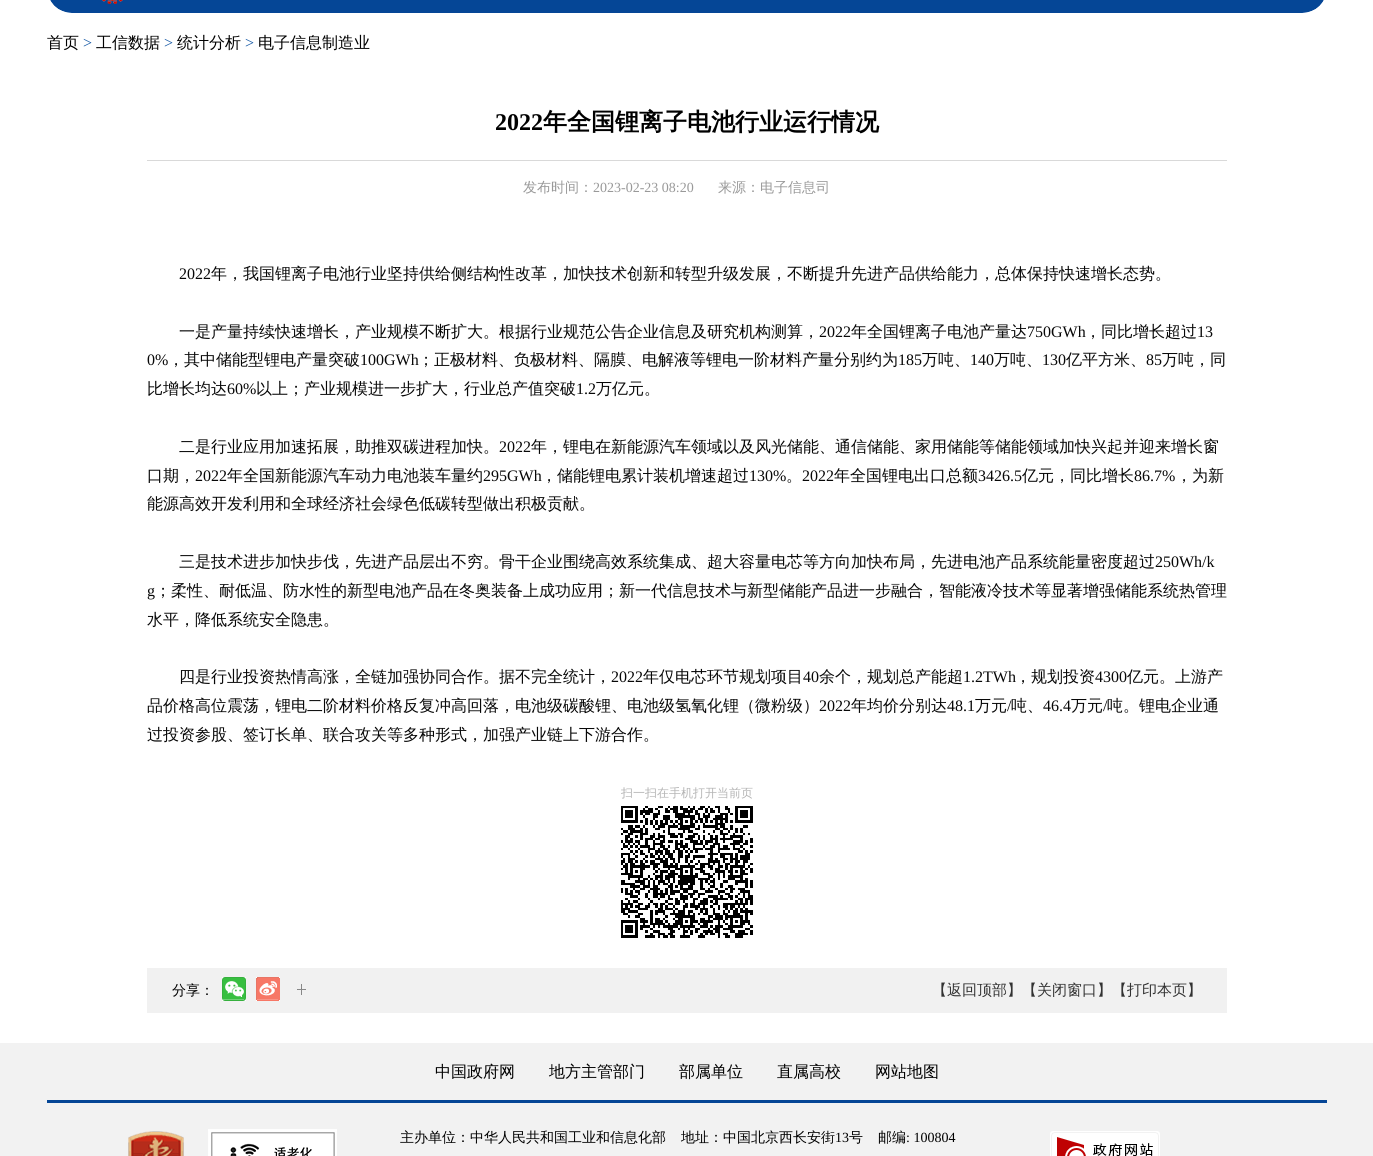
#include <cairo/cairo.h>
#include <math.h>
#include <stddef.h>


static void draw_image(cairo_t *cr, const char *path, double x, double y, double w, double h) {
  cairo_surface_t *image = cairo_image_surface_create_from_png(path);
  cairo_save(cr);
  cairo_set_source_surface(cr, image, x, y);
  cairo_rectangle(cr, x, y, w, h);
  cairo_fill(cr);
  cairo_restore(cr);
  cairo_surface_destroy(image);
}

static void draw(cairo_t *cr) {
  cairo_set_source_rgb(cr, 1, 1, 1);
  cairo_paint(cr);
  draw_image(cr, "images/1.png", 50, 0, 1274, 13);
  draw_image(cr, "images/2.png", 101, 0, 22, 4);
  cairo_set_source_rgb(cr, 217 / 255.0, 217 / 255.0, 217 / 255.0);
  cairo_rectangle(cr, 147, 160, 1080, 1);
  cairo_fill(cr);
  draw_image(cr, "images/3.png", 621, 806, 132, 132);
  cairo_set_source_rgb(cr, 241 / 255.0, 241 / 255.0, 241 / 255.0);
  cairo_rectangle(cr, 147, 968, 1080, 45);
  cairo_fill(cr);
  draw_image(cr, "images/4.png", 222, 977, 24, 24);
  draw_image(cr, "images/5.png", 256, 977, 24, 24);
  draw_image(cr, "images/6.png", 297, 984, 9, 11);
  cairo_set_source_rgb(cr, 242 / 255.0, 242 / 255.0, 242 / 255.0);
  cairo_rectangle(cr, 0, 1043, 1373, 113);
  cairo_fill(cr);
  cairo_set_source_rgb(cr, 5 / 255.0, 70 / 255.0, 150 / 255.0);
  cairo_rectangle(cr, 47, 1100, 1280, 3);
  cairo_fill(cr);
  draw_image(cr, "images/7.png", 128, 1131, 56, 25);
  draw_image(cr, "images/8.png", 208, 1129, 129, 27);
  draw_image(cr, "images/9.png", 1050, 1131, 110, 25);
  cairo_select_font_face(cr, "WenQuanYi Zen Hei Medium", CAIRO_FONT_SLANT_NORMAL, CAIRO_FONT_WEIGHT_NORMAL);
  cairo_set_font_size(cr, 16);
  cairo_set_source_rgb(cr, 0, 0, 0);
  cairo_move_to(cr, 47, 48);
  cairo_show_text(cr, "首页");
  cairo_select_font_face(cr, "Liberation Serif", CAIRO_FONT_SLANT_NORMAL, CAIRO_FONT_WEIGHT_NORMAL);
  cairo_set_source_rgb(cr, 17 / 255.0, 86 / 255.0, 164 / 255.0);
  cairo_move_to(cr, 83, 48);
  cairo_show_text(cr, ">");
  cairo_select_font_face(cr, "WenQuanYi Zen Hei Medium", CAIRO_FONT_SLANT_NORMAL, CAIRO_FONT_WEIGHT_NORMAL);
  cairo_set_source_rgb(cr, 0, 0, 0);
  cairo_move_to(cr, 96, 48);
  cairo_show_text(cr, "工信数据");
  cairo_select_font_face(cr, "Liberation Serif", CAIRO_FONT_SLANT_NORMAL, CAIRO_FONT_WEIGHT_NORMAL);
  cairo_set_source_rgb(cr, 17 / 255.0, 86 / 255.0, 164 / 255.0);
  cairo_move_to(cr, 164, 48);
  cairo_show_text(cr, ">");
  cairo_select_font_face(cr, "WenQuanYi Zen Hei Medium", CAIRO_FONT_SLANT_NORMAL, CAIRO_FONT_WEIGHT_NORMAL);
  cairo_set_source_rgb(cr, 0, 0, 0);
  cairo_move_to(cr, 177, 48);
  cairo_show_text(cr, "统计分析");
  cairo_select_font_face(cr, "Liberation Serif", CAIRO_FONT_SLANT_NORMAL, CAIRO_FONT_WEIGHT_NORMAL);
  cairo_set_source_rgb(cr, 17 / 255.0, 86 / 255.0, 164 / 255.0);
  cairo_move_to(cr, 245, 48);
  cairo_show_text(cr, ">");
  cairo_select_font_face(cr, "WenQuanYi Zen Hei Medium", CAIRO_FONT_SLANT_NORMAL, CAIRO_FONT_WEIGHT_NORMAL);
  cairo_set_source_rgb(cr, 0, 0, 0);
  cairo_move_to(cr, 258, 48);
  cairo_show_text(cr, "电子信息制造业");
  cairo_select_font_face(cr, "Liberation Serif", CAIRO_FONT_SLANT_NORMAL, CAIRO_FONT_WEIGHT_BOLD);
  cairo_set_font_size(cr, 24);
  cairo_move_to(cr, 495, 130);
  cairo_show_text(cr, "2022");
  cairo_select_font_face(cr, "WenQuanYi Zen Hei", CAIRO_FONT_SLANT_NORMAL, CAIRO_FONT_WEIGHT_BOLD);
  cairo_move_to(cr, 543, 130);
  cairo_show_text(cr, "年全国锂离子电池行业运行情况");
  cairo_select_font_face(cr, "WenQuanYi Zen Hei Medium", CAIRO_FONT_SLANT_NORMAL, CAIRO_FONT_WEIGHT_NORMAL);
  cairo_set_font_size(cr, 14);
  cairo_set_source_rgb(cr, 153 / 255.0, 153 / 255.0, 153 / 255.0);
  cairo_move_to(cr, 523, 192);
  cairo_show_text(cr, "发布时间：");
  cairo_select_font_face(cr, "Liberation Serif", CAIRO_FONT_SLANT_NORMAL, CAIRO_FONT_WEIGHT_NORMAL);
  cairo_move_to(cr, 593, 192);
  cairo_show_text(cr, "2023-02-23 08:20");
  cairo_select_font_face(cr, "WenQuanYi Zen Hei Medium", CAIRO_FONT_SLANT_NORMAL, CAIRO_FONT_WEIGHT_NORMAL);
  cairo_move_to(cr, 718, 192);
  cairo_show_text(cr, "来源：电子信息司");
  cairo_select_font_face(cr, "Liberation Serif", CAIRO_FONT_SLANT_NORMAL, CAIRO_FONT_WEIGHT_NORMAL);
  cairo_set_font_size(cr, 16);
  cairo_set_source_rgb(cr, 7 / 255.0, 7 / 255.0, 7 / 255.0);
  cairo_move_to(cr, 179, 279);
  cairo_show_text(cr, "2022");
  cairo_select_font_face(cr, "WenQuanYi Zen Hei Medium", CAIRO_FONT_SLANT_NORMAL, CAIRO_FONT_WEIGHT_NORMAL);
  cairo_move_to(cr, 211, 279);
  cairo_show_text(cr, "年，我国锂离子电池行业坚持供给侧结构性改革，加快技术创新和转型升级发展，不断提升先进产品供给能力，总体保持快速增长态势。");
  cairo_move_to(cr, 179, 337);
  cairo_show_text(cr, "一是产量持续快速增长，产业规模不断扩大。根据行业规范公告企业信息及研究机构测算，");
  cairo_select_font_face(cr, "Liberation Serif", CAIRO_FONT_SLANT_NORMAL, CAIRO_FONT_WEIGHT_NORMAL);
  cairo_move_to(cr, 819, 337);
  cairo_show_text(cr, "2022");
  cairo_select_font_face(cr, "WenQuanYi Zen Hei Medium", CAIRO_FONT_SLANT_NORMAL, CAIRO_FONT_WEIGHT_NORMAL);
  cairo_move_to(cr, 851, 337);
  cairo_show_text(cr, "年全国锂离子电池产量达");
  cairo_select_font_face(cr, "Liberation Serif", CAIRO_FONT_SLANT_NORMAL, CAIRO_FONT_WEIGHT_NORMAL);
  cairo_move_to(cr, 1027, 337);
  cairo_show_text(cr, "750GWh");
  cairo_select_font_face(cr, "WenQuanYi Zen Hei Medium", CAIRO_FONT_SLANT_NORMAL, CAIRO_FONT_WEIGHT_NORMAL);
  cairo_move_to(cr, 1085, 337);
  cairo_show_text(cr, "，同比增长超过");
  cairo_select_font_face(cr, "Liberation Serif", CAIRO_FONT_SLANT_NORMAL, CAIRO_FONT_WEIGHT_NORMAL);
  cairo_move_to(cr, 1197, 337);
  cairo_show_text(cr, "13");
  cairo_move_to(cr, 147, 365);
  cairo_show_text(cr, "0%");
  cairo_select_font_face(cr, "WenQuanYi Zen Hei Medium", CAIRO_FONT_SLANT_NORMAL, CAIRO_FONT_WEIGHT_NORMAL);
  cairo_move_to(cr, 168, 365);
  cairo_show_text(cr, "，其中储能型锂电产量突破");
  cairo_select_font_face(cr, "Liberation Serif", CAIRO_FONT_SLANT_NORMAL, CAIRO_FONT_WEIGHT_NORMAL);
  cairo_move_to(cr, 360, 365);
  cairo_show_text(cr, "100GWh");
  cairo_select_font_face(cr, "WenQuanYi Zen Hei Medium", CAIRO_FONT_SLANT_NORMAL, CAIRO_FONT_WEIGHT_NORMAL);
  cairo_move_to(cr, 418, 365);
  cairo_show_text(cr, "；正极材料、负极材料、隔膜、电解液等锂电一阶材料产量分别约为");
  cairo_select_font_face(cr, "Liberation Serif", CAIRO_FONT_SLANT_NORMAL, CAIRO_FONT_WEIGHT_NORMAL);
  cairo_move_to(cr, 898, 365);
  cairo_show_text(cr, "185");
  cairo_select_font_face(cr, "WenQuanYi Zen Hei Medium", CAIRO_FONT_SLANT_NORMAL, CAIRO_FONT_WEIGHT_NORMAL);
  cairo_move_to(cr, 922, 365);
  cairo_show_text(cr, "万吨、");
  cairo_select_font_face(cr, "Liberation Serif", CAIRO_FONT_SLANT_NORMAL, CAIRO_FONT_WEIGHT_NORMAL);
  cairo_move_to(cr, 970, 365);
  cairo_show_text(cr, "140");
  cairo_select_font_face(cr, "WenQuanYi Zen Hei Medium", CAIRO_FONT_SLANT_NORMAL, CAIRO_FONT_WEIGHT_NORMAL);
  cairo_move_to(cr, 994, 365);
  cairo_show_text(cr, "万吨、");
  cairo_select_font_face(cr, "Liberation Serif", CAIRO_FONT_SLANT_NORMAL, CAIRO_FONT_WEIGHT_NORMAL);
  cairo_move_to(cr, 1042, 365);
  cairo_show_text(cr, "130");
  cairo_select_font_face(cr, "WenQuanYi Zen Hei Medium", CAIRO_FONT_SLANT_NORMAL, CAIRO_FONT_WEIGHT_NORMAL);
  cairo_move_to(cr, 1066, 365);
  cairo_show_text(cr, "亿平方米、");
  cairo_select_font_face(cr, "Liberation Serif", CAIRO_FONT_SLANT_NORMAL, CAIRO_FONT_WEIGHT_NORMAL);
  cairo_move_to(cr, 1146, 365);
  cairo_show_text(cr, "85");
  cairo_select_font_face(cr, "WenQuanYi Zen Hei Medium", CAIRO_FONT_SLANT_NORMAL, CAIRO_FONT_WEIGHT_NORMAL);
  cairo_move_to(cr, 1162, 365);
  cairo_show_text(cr, "万吨，同");
  cairo_move_to(cr, 147, 394);
  cairo_show_text(cr, "比增长均达");
  cairo_select_font_face(cr, "Liberation Serif", CAIRO_FONT_SLANT_NORMAL, CAIRO_FONT_WEIGHT_NORMAL);
  cairo_move_to(cr, 227, 394);
  cairo_show_text(cr, "60%");
  cairo_select_font_face(cr, "WenQuanYi Zen Hei Medium", CAIRO_FONT_SLANT_NORMAL, CAIRO_FONT_WEIGHT_NORMAL);
  cairo_move_to(cr, 256, 394);
  cairo_show_text(cr, "以上；产业规模进一步扩大，行业总产值突破");
  cairo_select_font_face(cr, "Liberation Serif", CAIRO_FONT_SLANT_NORMAL, CAIRO_FONT_WEIGHT_NORMAL);
  cairo_move_to(cr, 576, 394);
  cairo_show_text(cr, "1.2");
  cairo_select_font_face(cr, "WenQuanYi Zen Hei Medium", CAIRO_FONT_SLANT_NORMAL, CAIRO_FONT_WEIGHT_NORMAL);
  cairo_move_to(cr, 596, 394);
  cairo_show_text(cr, "万亿元。");
  cairo_move_to(cr, 179, 452);
  cairo_show_text(cr, "二是行业应用加速拓展，助推双碳进程加快。");
  cairo_select_font_face(cr, "Liberation Serif", CAIRO_FONT_SLANT_NORMAL, CAIRO_FONT_WEIGHT_NORMAL);
  cairo_move_to(cr, 499, 452);
  cairo_show_text(cr, "2022");
  cairo_select_font_face(cr, "WenQuanYi Zen Hei Medium", CAIRO_FONT_SLANT_NORMAL, CAIRO_FONT_WEIGHT_NORMAL);
  cairo_move_to(cr, 531, 452);
  cairo_show_text(cr, "年，锂电在新能源汽车领域以及风光储能、通信储能、家用储能等储能领域加快兴起并迎来增长窗");
  cairo_move_to(cr, 147, 481);
  cairo_show_text(cr, "口期，");
  cairo_select_font_face(cr, "Liberation Serif", CAIRO_FONT_SLANT_NORMAL, CAIRO_FONT_WEIGHT_NORMAL);
  cairo_move_to(cr, 195, 481);
  cairo_show_text(cr, "2022");
  cairo_select_font_face(cr, "WenQuanYi Zen Hei Medium", CAIRO_FONT_SLANT_NORMAL, CAIRO_FONT_WEIGHT_NORMAL);
  cairo_move_to(cr, 227, 481);
  cairo_show_text(cr, "年全国新能源汽车动力电池装车量约");
  cairo_select_font_face(cr, "Liberation Serif", CAIRO_FONT_SLANT_NORMAL, CAIRO_FONT_WEIGHT_NORMAL);
  cairo_move_to(cr, 483, 481);
  cairo_show_text(cr, "295GWh");
  cairo_select_font_face(cr, "WenQuanYi Zen Hei Medium", CAIRO_FONT_SLANT_NORMAL, CAIRO_FONT_WEIGHT_NORMAL);
  cairo_move_to(cr, 541, 481);
  cairo_show_text(cr, "，储能锂电累计装机增速超过");
  cairo_select_font_face(cr, "Liberation Serif", CAIRO_FONT_SLANT_NORMAL, CAIRO_FONT_WEIGHT_NORMAL);
  cairo_move_to(cr, 749, 481);
  cairo_show_text(cr, "130%");
  cairo_select_font_face(cr, "WenQuanYi Zen Hei Medium", CAIRO_FONT_SLANT_NORMAL, CAIRO_FONT_WEIGHT_NORMAL);
  cairo_move_to(cr, 786, 481);
  cairo_show_text(cr, "。");
  cairo_select_font_face(cr, "Liberation Serif", CAIRO_FONT_SLANT_NORMAL, CAIRO_FONT_WEIGHT_NORMAL);
  cairo_move_to(cr, 802, 481);
  cairo_show_text(cr, "2022");
  cairo_select_font_face(cr, "WenQuanYi Zen Hei Medium", CAIRO_FONT_SLANT_NORMAL, CAIRO_FONT_WEIGHT_NORMAL);
  cairo_move_to(cr, 834, 481);
  cairo_show_text(cr, "年全国锂电出口总额");
  cairo_select_font_face(cr, "Liberation Serif", CAIRO_FONT_SLANT_NORMAL, CAIRO_FONT_WEIGHT_NORMAL);
  cairo_move_to(cr, 978, 481);
  cairo_show_text(cr, "3426.5");
  cairo_select_font_face(cr, "WenQuanYi Zen Hei Medium", CAIRO_FONT_SLANT_NORMAL, CAIRO_FONT_WEIGHT_NORMAL);
  cairo_move_to(cr, 1022, 481);
  cairo_show_text(cr, "亿元，同比增长");
  cairo_select_font_face(cr, "Liberation Serif", CAIRO_FONT_SLANT_NORMAL, CAIRO_FONT_WEIGHT_NORMAL);
  cairo_move_to(cr, 1134, 481);
  cairo_show_text(cr, "86.7%");
  cairo_select_font_face(cr, "WenQuanYi Zen Hei Medium", CAIRO_FONT_SLANT_NORMAL, CAIRO_FONT_WEIGHT_NORMAL);
  cairo_move_to(cr, 1176, 481);
  cairo_show_text(cr, "，为新");
  cairo_move_to(cr, 147, 509);
  cairo_show_text(cr, "能源高效开发利用和全球经济社会绿色低碳转型做出积极贡献。");
  cairo_move_to(cr, 179, 567);
  cairo_show_text(cr, "三是技术进步加快步伐，先进产品层出不穷。骨干企业围绕高效系统集成、超大容量电芯等方向加快布局，先进电池产品系统能量密度超过");
  cairo_select_font_face(cr, "Liberation Serif", CAIRO_FONT_SLANT_NORMAL, CAIRO_FONT_WEIGHT_NORMAL);
  cairo_move_to(cr, 1155, 567);
  cairo_show_text(cr, "250Wh/k");
  cairo_move_to(cr, 147, 596);
  cairo_show_text(cr, "g");
  cairo_select_font_face(cr, "WenQuanYi Zen Hei Medium", CAIRO_FONT_SLANT_NORMAL, CAIRO_FONT_WEIGHT_NORMAL);
  cairo_move_to(cr, 155, 596);
  cairo_show_text(cr, "；柔性、耐低温、防水性的新型电池产品在冬奥装备上成功应用；新一代信息技术与新型储能产品进一步融合，智能液冷技术等显著增强储能系统热管理");
  cairo_move_to(cr, 147, 625);
  cairo_show_text(cr, "水平，降低系统安全隐患。");
  cairo_move_to(cr, 179, 682);
  cairo_show_text(cr, "四是行业投资热情高涨，全链加强协同合作。据不完全统计，");
  cairo_select_font_face(cr, "Liberation Serif", CAIRO_FONT_SLANT_NORMAL, CAIRO_FONT_WEIGHT_NORMAL);
  cairo_move_to(cr, 611, 682);
  cairo_show_text(cr, "2022");
  cairo_select_font_face(cr, "WenQuanYi Zen Hei Medium", CAIRO_FONT_SLANT_NORMAL, CAIRO_FONT_WEIGHT_NORMAL);
  cairo_move_to(cr, 643, 682);
  cairo_show_text(cr, "年仅电芯环节规划项目");
  cairo_select_font_face(cr, "Liberation Serif", CAIRO_FONT_SLANT_NORMAL, CAIRO_FONT_WEIGHT_NORMAL);
  cairo_move_to(cr, 803, 682);
  cairo_show_text(cr, "40");
  cairo_select_font_face(cr, "WenQuanYi Zen Hei Medium", CAIRO_FONT_SLANT_NORMAL, CAIRO_FONT_WEIGHT_NORMAL);
  cairo_move_to(cr, 819, 682);
  cairo_show_text(cr, "余个，规划总产能超");
  cairo_select_font_face(cr, "Liberation Serif", CAIRO_FONT_SLANT_NORMAL, CAIRO_FONT_WEIGHT_NORMAL);
  cairo_move_to(cr, 963, 682);
  cairo_show_text(cr, "1.2TWh");
  cairo_select_font_face(cr, "WenQuanYi Zen Hei Medium", CAIRO_FONT_SLANT_NORMAL, CAIRO_FONT_WEIGHT_NORMAL);
  cairo_move_to(cr, 1015, 682);
  cairo_show_text(cr, "，规划投资");
  cairo_select_font_face(cr, "Liberation Serif", CAIRO_FONT_SLANT_NORMAL, CAIRO_FONT_WEIGHT_NORMAL);
  cairo_move_to(cr, 1095, 682);
  cairo_show_text(cr, "4300");
  cairo_select_font_face(cr, "WenQuanYi Zen Hei Medium", CAIRO_FONT_SLANT_NORMAL, CAIRO_FONT_WEIGHT_NORMAL);
  cairo_move_to(cr, 1127, 682);
  cairo_show_text(cr, "亿元。上游产");
  cairo_move_to(cr, 147, 711);
  cairo_show_text(cr, "品价格高位震荡，锂电二阶材料价格反复冲高回落，电池级碳酸锂、电池级氢氧化锂（微粉级）");
  cairo_select_font_face(cr, "Liberation Serif", CAIRO_FONT_SLANT_NORMAL, CAIRO_FONT_WEIGHT_NORMAL);
  cairo_move_to(cr, 819, 711);
  cairo_show_text(cr, "2022");
  cairo_select_font_face(cr, "WenQuanYi Zen Hei Medium", CAIRO_FONT_SLANT_NORMAL, CAIRO_FONT_WEIGHT_NORMAL);
  cairo_move_to(cr, 851, 711);
  cairo_show_text(cr, "年均价分别达");
  cairo_select_font_face(cr, "Liberation Serif", CAIRO_FONT_SLANT_NORMAL, CAIRO_FONT_WEIGHT_NORMAL);
  cairo_move_to(cr, 947, 711);
  cairo_show_text(cr, "48.1");
  cairo_select_font_face(cr, "WenQuanYi Zen Hei Medium", CAIRO_FONT_SLANT_NORMAL, CAIRO_FONT_WEIGHT_NORMAL);
  cairo_move_to(cr, 975, 711);
  cairo_show_text(cr, "万元");
  cairo_select_font_face(cr, "Liberation Serif", CAIRO_FONT_SLANT_NORMAL, CAIRO_FONT_WEIGHT_NORMAL);
  cairo_move_to(cr, 1007, 711);
  cairo_show_text(cr, "/");
  cairo_select_font_face(cr, "WenQuanYi Zen Hei Medium", CAIRO_FONT_SLANT_NORMAL, CAIRO_FONT_WEIGHT_NORMAL);
  cairo_move_to(cr, 1011, 711);
  cairo_show_text(cr, "吨、");
  cairo_select_font_face(cr, "Liberation Serif", CAIRO_FONT_SLANT_NORMAL, CAIRO_FONT_WEIGHT_NORMAL);
  cairo_move_to(cr, 1043, 711);
  cairo_show_text(cr, "46.4");
  cairo_select_font_face(cr, "WenQuanYi Zen Hei Medium", CAIRO_FONT_SLANT_NORMAL, CAIRO_FONT_WEIGHT_NORMAL);
  cairo_move_to(cr, 1071, 711);
  cairo_show_text(cr, "万元");
  cairo_select_font_face(cr, "Liberation Serif", CAIRO_FONT_SLANT_NORMAL, CAIRO_FONT_WEIGHT_NORMAL);
  cairo_move_to(cr, 1103, 711);
  cairo_show_text(cr, "/");
  cairo_select_font_face(cr, "WenQuanYi Zen Hei Medium", CAIRO_FONT_SLANT_NORMAL, CAIRO_FONT_WEIGHT_NORMAL);
  cairo_move_to(cr, 1107, 711);
  cairo_show_text(cr, "吨。锂电企业通");
  cairo_move_to(cr, 147, 740);
  cairo_show_text(cr, "过投资参股、签订长单、联合攻关等多种形式，加强产业链上下游合作。");
  cairo_set_font_size(cr, 12);
  cairo_set_source_rgb(cr, 181 / 255.0, 181 / 255.0, 181 / 255.0);
  cairo_move_to(cr, 621, 797);
  cairo_show_text(cr, "扫一扫在手机打开当前页");
  cairo_set_font_size(cr, 14);
  cairo_set_source_rgb(cr, 0, 0, 0);
  cairo_move_to(cr, 172, 995);
  cairo_show_text(cr, "分享：");
  cairo_set_font_size(cr, 15);
  cairo_set_source_rgb(cr, 51 / 255.0, 51 / 255.0, 51 / 255.0);
  cairo_move_to(cr, 932, 995);
  cairo_show_text(cr, "【返回顶部】【关闭窗口】【打印本页】");
  cairo_set_font_size(cr, 16);
  cairo_set_source_rgb(cr, 0, 0, 0);
  cairo_move_to(cr, 435, 1077);
  cairo_show_text(cr, "中国政府网");
  cairo_move_to(cr, 549, 1077);
  cairo_show_text(cr, "地方主管部门");
  cairo_move_to(cr, 679, 1077);
  cairo_show_text(cr, "部属单位");
  cairo_move_to(cr, 777, 1077);
  cairo_show_text(cr, "直属高校");
  cairo_move_to(cr, 875, 1077);
  cairo_show_text(cr, "网站地图");
  cairo_set_font_size(cr, 14);
  cairo_move_to(cr, 400, 1142);
  cairo_show_text(cr, "主办单位：中华人民共和国工业和信息化部");
  cairo_move_to(cr, 681, 1142);
  cairo_show_text(cr, "地址：中国北京西长安街");
  cairo_select_font_face(cr, "Liberation Serif", CAIRO_FONT_SLANT_NORMAL, CAIRO_FONT_WEIGHT_NORMAL);
  cairo_move_to(cr, 835, 1142);
  cairo_show_text(cr, "13");
  cairo_select_font_face(cr, "WenQuanYi Zen Hei Medium", CAIRO_FONT_SLANT_NORMAL, CAIRO_FONT_WEIGHT_NORMAL);
  cairo_move_to(cr, 849, 1142);
  cairo_show_text(cr, "号");
  cairo_move_to(cr, 878, 1142);
  cairo_show_text(cr, "邮编");
  cairo_select_font_face(cr, "Liberation Serif", CAIRO_FONT_SLANT_NORMAL, CAIRO_FONT_WEIGHT_NORMAL);
  cairo_move_to(cr, 906, 1142);
  cairo_show_text(cr, ": 100804");
}

int main(void) {
  cairo_surface_t *surface = cairo_image_surface_create(CAIRO_FORMAT_RGB24, 1373, 1156);
  cairo_t *cr = cairo_create(surface);
  cairo_font_options_t *options = cairo_font_options_create();
  cairo_font_options_set_hint_metrics(options, CAIRO_HINT_METRICS_OFF);
  cairo_font_options_set_hint_style(options, CAIRO_HINT_STYLE_NONE);
  cairo_set_font_options(cr, options);
  cairo_set_miter_limit(cr, 4);
  draw(cr);
  cairo_surface_write_to_png(surface, "out.png");
  cairo_font_options_destroy(options);
  cairo_destroy(cr);
  cairo_surface_destroy(surface);
  return 0;
}
